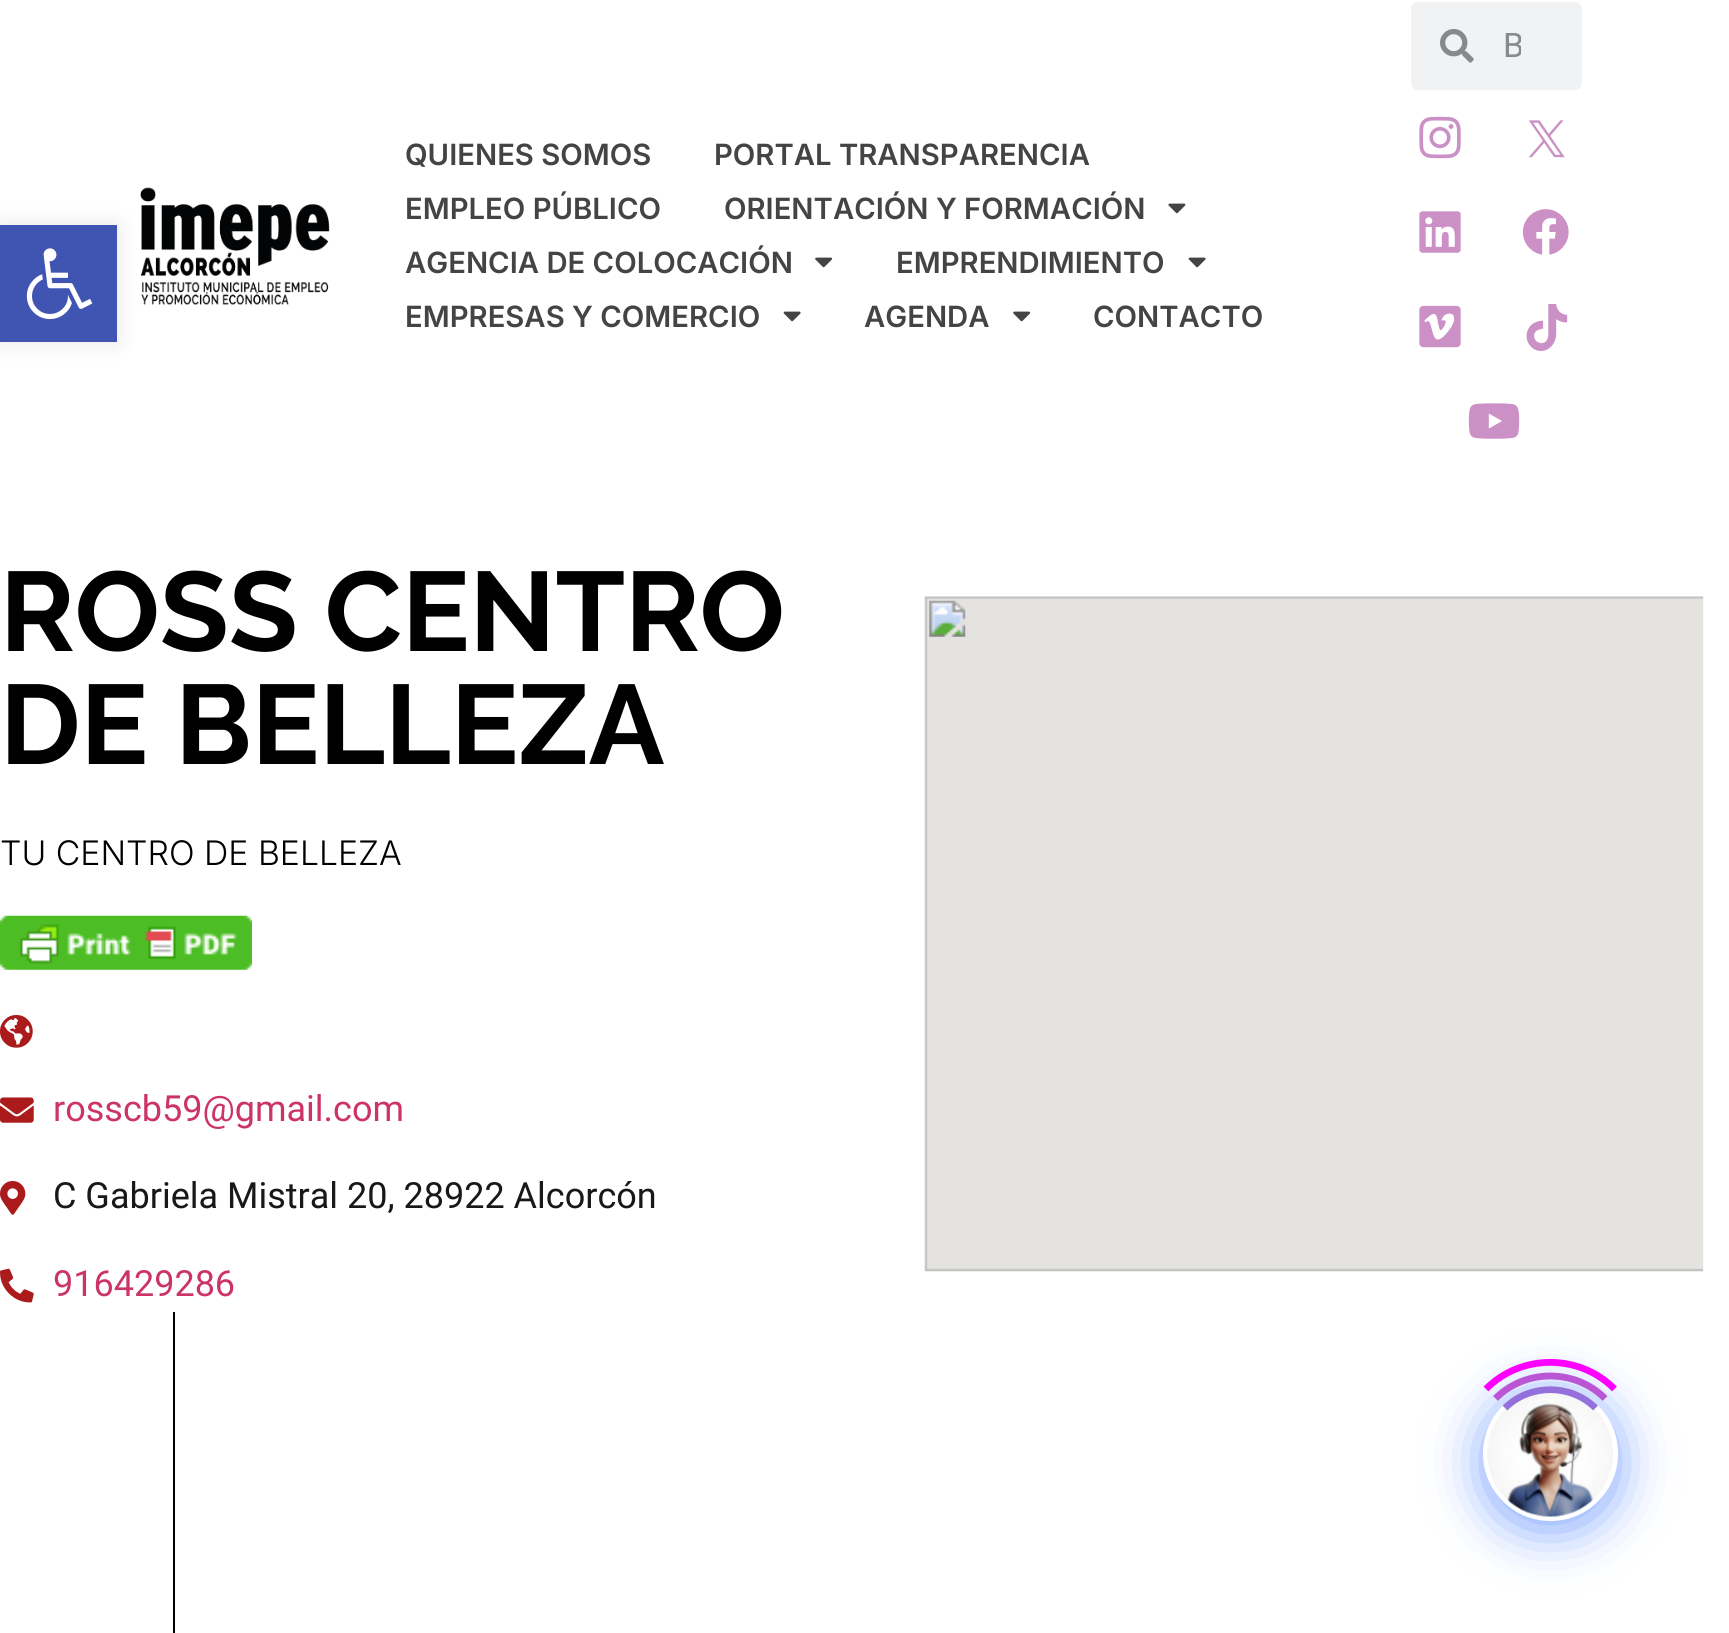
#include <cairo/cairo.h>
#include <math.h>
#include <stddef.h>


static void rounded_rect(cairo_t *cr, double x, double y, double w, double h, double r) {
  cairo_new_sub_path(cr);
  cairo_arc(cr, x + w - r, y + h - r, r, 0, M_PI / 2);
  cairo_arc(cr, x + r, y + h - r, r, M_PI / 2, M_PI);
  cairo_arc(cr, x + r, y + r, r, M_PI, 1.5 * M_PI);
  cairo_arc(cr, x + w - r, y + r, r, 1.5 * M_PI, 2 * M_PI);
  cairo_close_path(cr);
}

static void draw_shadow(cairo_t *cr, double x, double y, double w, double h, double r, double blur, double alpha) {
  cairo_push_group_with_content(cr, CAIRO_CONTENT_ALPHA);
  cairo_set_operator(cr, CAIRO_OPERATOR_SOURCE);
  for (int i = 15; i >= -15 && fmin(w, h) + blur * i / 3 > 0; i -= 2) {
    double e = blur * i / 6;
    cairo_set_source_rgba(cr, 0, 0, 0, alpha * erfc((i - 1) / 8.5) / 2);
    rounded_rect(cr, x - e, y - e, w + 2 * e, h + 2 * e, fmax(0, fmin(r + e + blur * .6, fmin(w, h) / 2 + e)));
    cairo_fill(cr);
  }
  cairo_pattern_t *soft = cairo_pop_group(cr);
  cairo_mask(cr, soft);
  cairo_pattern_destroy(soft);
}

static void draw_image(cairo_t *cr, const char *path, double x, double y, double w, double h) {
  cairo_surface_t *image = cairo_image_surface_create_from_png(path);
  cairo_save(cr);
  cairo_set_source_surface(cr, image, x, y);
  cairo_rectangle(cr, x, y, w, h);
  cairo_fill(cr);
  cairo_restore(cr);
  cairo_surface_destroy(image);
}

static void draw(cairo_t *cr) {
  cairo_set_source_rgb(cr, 1, 1, 1);
  cairo_paint(cr);
  draw_image(cr, "images/10.png", 140, 187, 190, 118);
  cairo_set_source_rgb(cr, 0, 0, 0);
  draw_shadow(cr, 0, 225, 117, 117, 0, 11, 0.1);
  cairo_set_source_rgb(cr, 64 / 255.0, 84 / 255.0, 178 / 255.0);
  cairo_rectangle(cr, 0, 225, 117, 117);
  cairo_fill(cr);
  draw_image(cr, "images/1.png", 26, 248, 67, 72);
  cairo_set_source_rgb(cr, 241 / 255.0, 242 / 255.0, 243 / 255.0);
  rounded_rect(cr, 1411, 2, 171, 88, 7);
  cairo_fill(cr);
  draw_image(cr, "images/2.png", 1440, 29, 34, 34);
  draw_image(cr, "images/3.png", 1419, 116, 42, 43);
  draw_image(cr, "images/4.png", 1529, 120, 36, 38);
  draw_image(cr, "images/5.png", 1419, 211, 42, 42);
  draw_image(cr, "images/6.png", 1522, 209, 47, 46);
  draw_image(cr, "images/7.png", 1419, 305, 42, 43);
  draw_image(cr, "images/8.png", 1526, 304, 42, 47);
  draw_image(cr, "images/9.png", 1468, 403, 52, 36);
  draw_image(cr, "images/11.png", 1168, 203, 18, 11);
  draw_image(cr, "images/12.png", 815, 257, 18, 11);
  draw_image(cr, "images/13.png", 1188, 257, 18, 11);
  draw_image(cr, "images/13.png", 783, 311, 18, 11);
  draw_image(cr, "images/12.png", 1013, 311, 18, 11);
  draw_image(cr, "images/14.png", 0, 915, 252, 55);
  draw_image(cr, "images/15.png", 0, 1015, 33, 33);
  draw_image(cr, "images/16.png", 0, 1097, 34, 26);
  draw_image(cr, "images/17.png", 0, 1181, 26, 34);
  draw_image(cr, "images/18.png", 0, 1268, 34, 35);
  draw_image(cr, "images/19.png", 924, 596, 780, 676);
  cairo_set_source_rgb(cr, 0, 0, 0);
  cairo_rectangle(cr, 173, 1312, 2, 321);
  cairo_fill(cr);
  cairo_set_source_rgb(cr, 0, 77 / 255.0, 1);
  draw_shadow(cr, 1483, 1395, 135, 135, 67.5, 27, 0.5);
  cairo_set_source_rgb(cr, 1, 1, 1);
  cairo_arc(cr, 1550.5, 1453.5, 67.5, 0, 2 * M_PI);
  cairo_fill(cr);
  draw_image(cr, "images/20.png", 1487, 1393, 126, 124);
  cairo_new_path(cr);
  cairo_move_to(cr, 1505, 1408);
  cairo_curve_to(cr, 1529.5, 1383.5, 1571, 1383.5, 1595.5, 1408);
  cairo_set_source_rgb(cr, 147 / 255.0, 112 / 255.0, 219 / 255.0);
  cairo_set_line_width(cr, 6.8);
  cairo_stroke(cr);
  cairo_new_path(cr);
  cairo_move_to(cr, 1495.5, 1398.5);
  cairo_curve_to(cr, 1525.5, 1368.5, 1575, 1368.5, 1605, 1398.5);
  cairo_set_source_rgb(cr, 186 / 255.0, 85 / 255.0, 211 / 255.0);
  cairo_stroke(cr);
  cairo_new_path(cr);
  cairo_move_to(cr, 1486, 1389);
  cairo_curve_to(cr, 1521, 1353.5, 1579.5, 1353.5, 1614.5, 1389);
  cairo_set_source_rgb(cr, 1, 0, 1);
  cairo_stroke(cr);
  cairo_save(cr);
  cairo_rectangle(cr, 1503, 27, 18, 41);
  cairo_clip(cr);
  cairo_select_font_face(cr, "Roboto", CAIRO_FONT_SLANT_NORMAL, CAIRO_FONT_WEIGHT_NORMAL);
  cairo_set_font_size(cr, 33.75);
  cairo_set_source_rgb(cr, 134 / 255.0, 138 / 255.0, 142 / 255.0);
  cairo_move_to(cr, 1503, 57);
  cairo_show_text(cr, "B");
  cairo_restore(cr);
  cairo_select_font_face(cr, "Inter SemiBold", CAIRO_FONT_SLANT_NORMAL, CAIRO_FONT_WEIGHT_NORMAL);
  cairo_set_font_size(cr, 29.25);
  cairo_set_source_rgb(cr, 68 / 255.0, 68 / 255.0, 68 / 255.0);
  cairo_move_to(cr, 405, 165);
  cairo_show_text(cr, "QUIENES SOMOS");
  cairo_move_to(cr, 714, 165);
  cairo_show_text(cr, "PORTAL TRANSPARENCIA");
  cairo_move_to(cr, 405, 219);
  cairo_show_text(cr, "EMPLEO PÚBLICO");
  cairo_move_to(cr, 724, 219);
  cairo_show_text(cr, "ORIENTACIÓN Y FORMACIÓN");
  cairo_move_to(cr, 405, 273);
  cairo_show_text(cr, "AGENCIA DE COLOCACIÓN");
  cairo_move_to(cr, 896, 273);
  cairo_show_text(cr, "EMPRENDIMIENTO");
  cairo_move_to(cr, 405, 327);
  cairo_show_text(cr, "EMPRESAS Y COMERCIO");
  cairo_move_to(cr, 864, 327);
  cairo_show_text(cr, "AGENDA");
  cairo_move_to(cr, 1093, 327);
  cairo_show_text(cr, "CONTACTO");
  cairo_select_font_face(cr, "Raleway", CAIRO_FONT_SLANT_NORMAL, CAIRO_FONT_WEIGHT_BOLD);
  cairo_set_font_size(cr, 112.5);
  cairo_set_source_rgb(cr, 0, 0, 0);
  cairo_move_to(cr, 0, 651);
  cairo_show_text(cr, "ROSS CENTRO");
  cairo_move_to(cr, 0, 764);
  cairo_show_text(cr, "DE BELLEZA");
  cairo_select_font_face(cr, "Inter Light", CAIRO_FONT_SLANT_NORMAL, CAIRO_FONT_WEIGHT_NORMAL);
  cairo_set_font_size(cr, 33.75);
  cairo_move_to(cr, 0, 865);
  cairo_show_text(cr, "TU CENTRO DE BELLEZA");
  cairo_select_font_face(cr, "Roboto", CAIRO_FONT_SLANT_NORMAL, CAIRO_FONT_WEIGHT_NORMAL);
  cairo_set_font_size(cr, 36);
  cairo_set_source_rgb(cr, 204 / 255.0, 51 / 255.0, 102 / 255.0);
  cairo_move_to(cr, 53, 1121);
  cairo_show_text(cr, "rosscb59@gmail.com");
  cairo_set_source_rgb(cr, 24 / 255.0, 24 / 255.0, 24 / 255.0);
  cairo_move_to(cr, 53, 1208);
  cairo_show_text(cr, "C Gabriela Mistral 20, 28922 Alcorcón");
  cairo_set_source_rgb(cr, 204 / 255.0, 51 / 255.0, 102 / 255.0);
  cairo_move_to(cr, 53, 1296);
  cairo_show_text(cr, "916429286");
}

int main(void) {
  cairo_surface_t *surface = cairo_image_surface_create(CAIRO_FORMAT_RGB24, 1729, 1633);
  cairo_t *cr = cairo_create(surface);
  cairo_font_options_t *options = cairo_font_options_create();
  cairo_font_options_set_hint_metrics(options, CAIRO_HINT_METRICS_OFF);
  cairo_font_options_set_hint_style(options, CAIRO_HINT_STYLE_NONE);
  cairo_set_font_options(cr, options);
  cairo_set_miter_limit(cr, 4);
  draw(cr);
  cairo_surface_write_to_png(surface, "out.png");
  cairo_font_options_destroy(options);
  cairo_destroy(cr);
  cairo_surface_destroy(surface);
  return 0;
}
